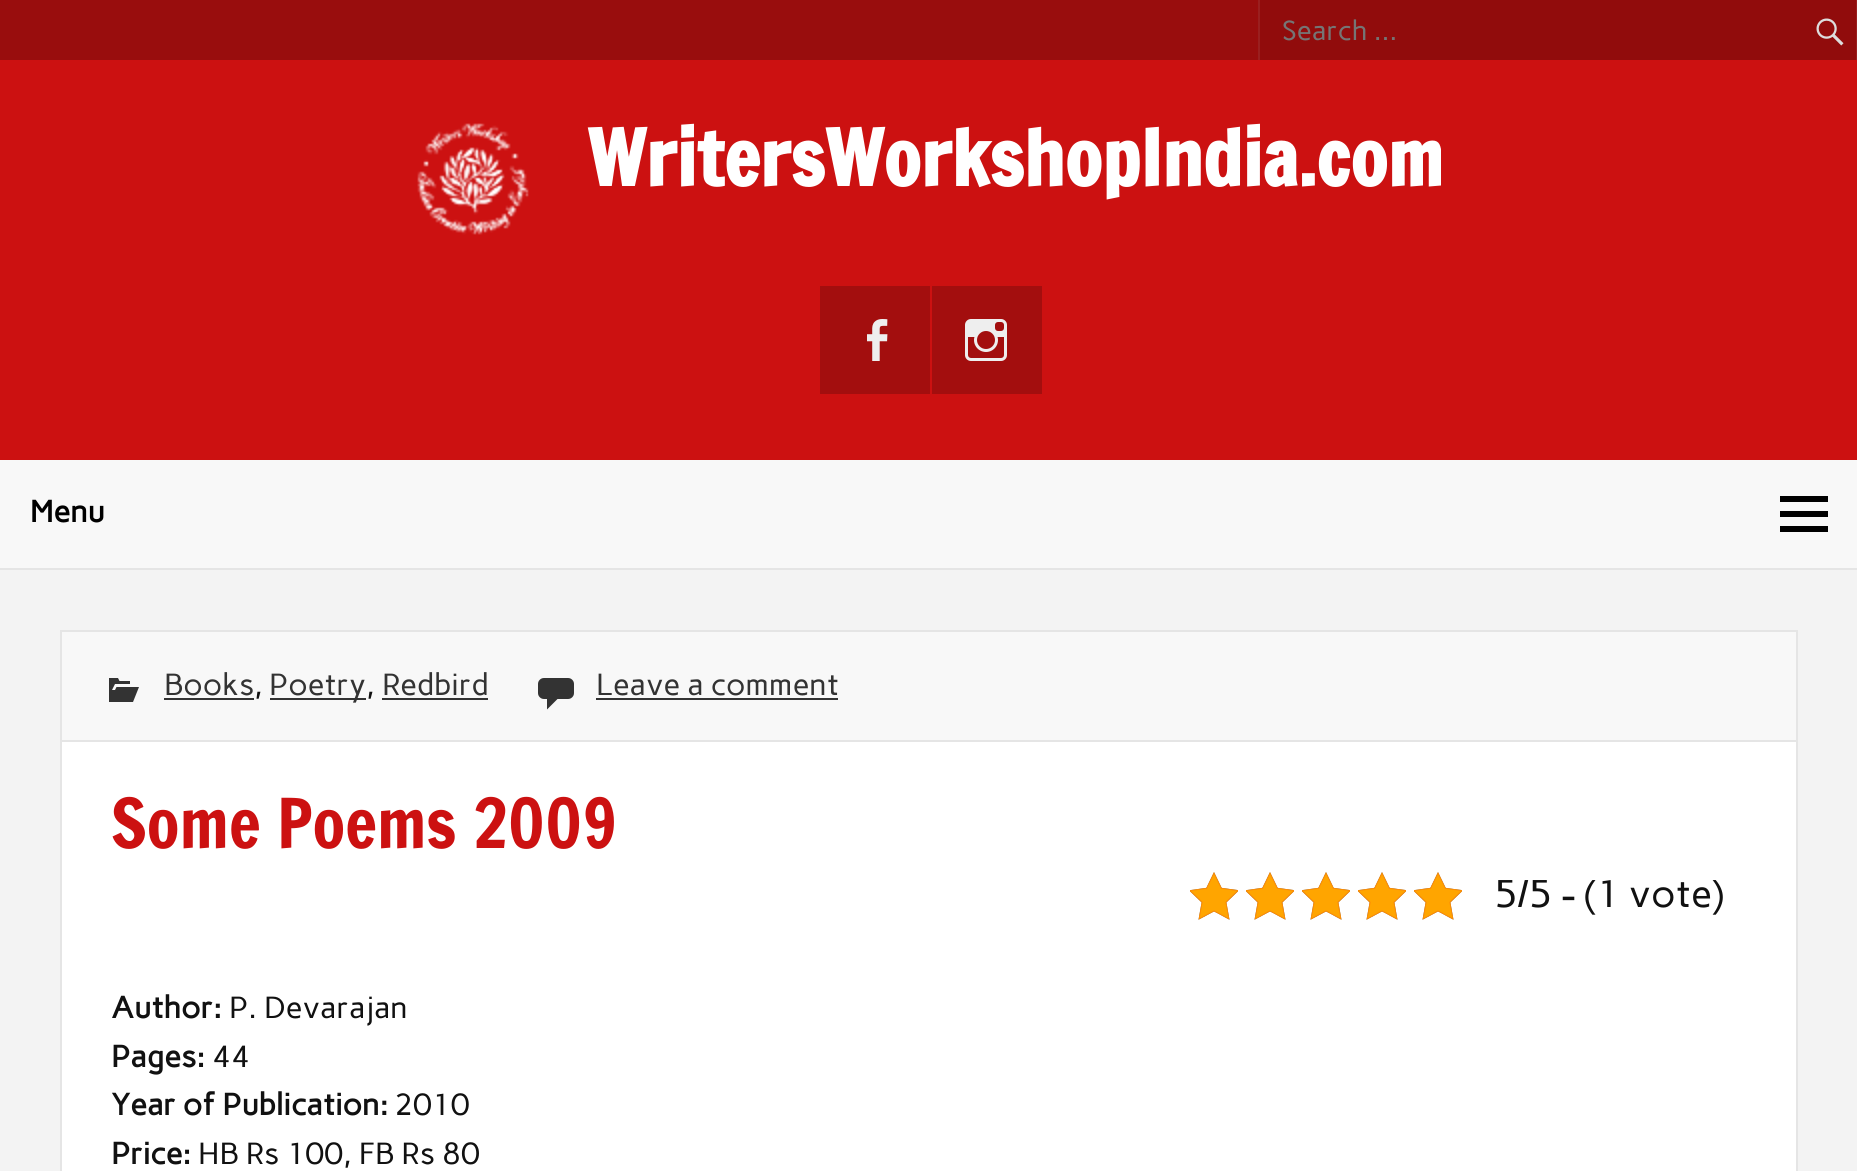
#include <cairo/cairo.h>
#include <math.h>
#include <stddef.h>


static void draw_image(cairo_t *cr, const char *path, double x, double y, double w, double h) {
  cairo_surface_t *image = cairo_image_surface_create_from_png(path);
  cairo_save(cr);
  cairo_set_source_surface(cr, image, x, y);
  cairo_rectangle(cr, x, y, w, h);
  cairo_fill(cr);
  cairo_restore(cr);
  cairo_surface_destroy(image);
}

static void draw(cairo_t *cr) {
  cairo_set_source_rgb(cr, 243 / 255.0, 243 / 255.0, 243 / 255.0);
  cairo_paint(cr);
  cairo_set_source_rgb(cr, 204 / 255.0, 17 / 255.0, 17 / 255.0);
  cairo_rectangle(cr, 0, 60, 1857, 400);
  cairo_fill(cr);
  cairo_set_source_rgb(cr, 153 / 255.0, 13 / 255.0, 13 / 255.0);
  cairo_rectangle(cr, 0, 0, 1258, 60);
  cairo_fill(cr);
  cairo_set_source_rgb(cr, 145 / 255.0, 12 / 255.0, 12 / 255.0);
  cairo_rectangle(cr, 1260, 0, 596, 60);
  cairo_fill(cr);
  cairo_set_source_rgb(cr, 154 / 255.0, 31 / 255.0, 31 / 255.0);
  cairo_rectangle(cr, 1856, 0, 1, 60);
  cairo_fill(cr);
  cairo_rectangle(cr, 1258, 0, 2, 60);
  cairo_fill(cr);
  draw_image(cr, "images/1.png", 1816, 18, 28, 28);
  draw_image(cr, "images/2.png", 417, 123, 112, 112);
  cairo_set_source_rgb(cr, 163 / 255.0, 14 / 255.0, 14 / 255.0);
  cairo_rectangle(cr, 820, 286, 110, 108);
  cairo_fill(cr);
  draw_image(cr, "images/3.png", 867, 319, 21, 42);
  cairo_rectangle(cr, 932, 286, 110, 108);
  cairo_fill(cr);
  draw_image(cr, "images/4.png", 965, 319, 42, 42);
  cairo_set_source_rgb(cr, 248 / 255.0, 248 / 255.0, 248 / 255.0);
  cairo_rectangle(cr, 0, 460, 1857, 108);
  cairo_fill(cr);
  cairo_set_source_rgb(cr, 229 / 255.0, 229 / 255.0, 229 / 255.0);
  cairo_rectangle(cr, 0, 568, 1857, 2);
  cairo_fill(cr);
  cairo_set_source_rgb(cr, 0, 0, 0);
  cairo_new_path(cr);
  cairo_move_to(cr, 1780, 532);
  cairo_line_to(cr, 1780, 526);
  cairo_line_to(cr, 1828, 526);
  cairo_line_to(cr, 1828, 532);
  cairo_close_path(cr);
  cairo_move_to(cr, 1780, 496);
  cairo_line_to(cr, 1828, 496);
  cairo_line_to(cr, 1828, 502);
  cairo_line_to(cr, 1780, 502);
  cairo_close_path(cr);
  cairo_move_to(cr, 1780, 517);
  cairo_line_to(cr, 1780, 511);
  cairo_line_to(cr, 1828, 511);
  cairo_line_to(cr, 1828, 517);
  cairo_close_path(cr);
  cairo_fill(cr);
  cairo_set_source_rgb(cr, 248 / 255.0, 248 / 255.0, 248 / 255.0);
  cairo_rectangle(cr, 62, 632, 1734, 108);
  cairo_fill(cr);
  cairo_rectangle(cr, 61, 631, 1736, 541);
  cairo_set_source_rgb(cr, 229 / 255.0, 229 / 255.0, 229 / 255.0);
  cairo_stroke(cr);
  draw_image(cr, "images/5.png", 109, 678, 30, 24);
  cairo_set_source_rgb(cr, 51 / 255.0, 51 / 255.0, 51 / 255.0);
  cairo_rectangle(cr, 164, 698, 90, 2);
  cairo_fill(cr);
  cairo_rectangle(cr, 270, 698, 96, 2);
  cairo_fill(cr);
  cairo_rectangle(cr, 382, 698, 106, 2);
  cairo_fill(cr);
  draw_image(cr, "images/6.png", 538, 678, 36, 32);
  cairo_rectangle(cr, 596, 698, 242, 2);
  cairo_fill(cr);
  cairo_set_source_rgb(cr, 1, 1, 1);
  cairo_rectangle(cr, 62, 742, 1734, 429);
  cairo_fill(cr);
  cairo_set_source_rgb(cr, 229 / 255.0, 229 / 255.0, 229 / 255.0);
  cairo_rectangle(cr, 62, 740, 1734, 2);
  cairo_fill(cr);
  draw_image(cr, "images/7.png", 1190, 872, 48, 48);
  draw_image(cr, "images/7.png", 1246, 872, 48, 48);
  draw_image(cr, "images/7.png", 1302, 872, 48, 48);
  draw_image(cr, "images/7.png", 1358, 872, 48, 48);
  draw_image(cr, "images/7.png", 1414, 872, 48, 48);
  draw_image(cr, "images/8.png", 1190, 872, 48, 48);
  draw_image(cr, "images/8.png", 1246, 872, 48, 48);
  draw_image(cr, "images/8.png", 1302, 872, 48, 48);
  draw_image(cr, "images/8.png", 1358, 872, 48, 48);
  draw_image(cr, "images/8.png", 1414, 872, 48, 48);
  cairo_select_font_face(cr, "Carme", CAIRO_FONT_SLANT_NORMAL, CAIRO_FONT_WEIGHT_NORMAL);
  cairo_set_font_size(cr, 27.5);
  cairo_set_source_rgb(cr, 117 / 255.0, 117 / 255.0, 117 / 255.0);
  cairo_move_to(cr, 1282, 40);
  cairo_show_text(cr, "Search …");
  cairo_select_font_face(cr, "Francois One", CAIRO_FONT_SLANT_NORMAL, CAIRO_FONT_WEIGHT_BOLD);
  cairo_set_font_size(cr, 76);
  cairo_set_source_rgb(cr, 1, 1, 1);
  cairo_move_to(cr, 587, 186);
  cairo_show_text(cr, "WritersWorkshopIndia.com");
  cairo_select_font_face(cr, "Carme", CAIRO_FONT_SLANT_NORMAL, CAIRO_FONT_WEIGHT_BOLD);
  cairo_set_font_size(cr, 30.5);
  cairo_set_source_rgb(cr, 0, 0, 0);
  cairo_move_to(cr, 30, 522);
  cairo_show_text(cr, "Menu");
  cairo_select_font_face(cr, "Carme", CAIRO_FONT_SLANT_NORMAL, CAIRO_FONT_WEIGHT_NORMAL);
  cairo_set_source_rgb(cr, 51 / 255.0, 51 / 255.0, 51 / 255.0);
  cairo_move_to(cr, 164, 695);
  cairo_show_text(cr, "Books");
  cairo_set_source_rgb(cr, 17 / 255.0, 17 / 255.0, 17 / 255.0);
  cairo_move_to(cr, 254, 695);
  cairo_show_text(cr, ",");
  cairo_set_source_rgb(cr, 51 / 255.0, 51 / 255.0, 51 / 255.0);
  cairo_move_to(cr, 269, 695);
  cairo_show_text(cr, "Poetry");
  cairo_set_source_rgb(cr, 17 / 255.0, 17 / 255.0, 17 / 255.0);
  cairo_move_to(cr, 366, 695);
  cairo_show_text(cr, ",");
  cairo_set_source_rgb(cr, 51 / 255.0, 51 / 255.0, 51 / 255.0);
  cairo_move_to(cr, 382, 695);
  cairo_show_text(cr, "Redbird");
  cairo_move_to(cr, 596, 695);
  cairo_show_text(cr, "Leave a comment");
  cairo_select_font_face(cr, "Francois One", CAIRO_FONT_SLANT_NORMAL, CAIRO_FONT_WEIGHT_NORMAL);
  cairo_set_font_size(cr, 67);
  cairo_set_source_rgb(cr, 204 / 255.0, 17 / 255.0, 17 / 255.0);
  cairo_move_to(cr, 111, 848);
  cairo_show_text(cr, "Some Poems 2009");
  cairo_select_font_face(cr, "Carme", CAIRO_FONT_SLANT_NORMAL, CAIRO_FONT_WEIGHT_NORMAL);
  cairo_set_font_size(cr, 38.5);
  cairo_set_source_rgb(cr, 17 / 255.0, 17 / 255.0, 17 / 255.0);
  cairo_move_to(cr, 1494, 907);
  cairo_show_text(cr, "5/5 - (1 vote)");
  cairo_select_font_face(cr, "Carme", CAIRO_FONT_SLANT_NORMAL, CAIRO_FONT_WEIGHT_BOLD);
  cairo_set_font_size(cr, 30.5);
  cairo_move_to(cr, 111, 1018);
  cairo_show_text(cr, "Author:");
  cairo_select_font_face(cr, "Carme", CAIRO_FONT_SLANT_NORMAL, CAIRO_FONT_WEIGHT_NORMAL);
  cairo_move_to(cr, 229, 1018);
  cairo_show_text(cr, "P. Devarajan");
  cairo_select_font_face(cr, "Carme", CAIRO_FONT_SLANT_NORMAL, CAIRO_FONT_WEIGHT_BOLD);
  cairo_move_to(cr, 111, 1067);
  cairo_show_text(cr, "Pages:");
  cairo_select_font_face(cr, "Carme", CAIRO_FONT_SLANT_NORMAL, CAIRO_FONT_WEIGHT_NORMAL);
  cairo_move_to(cr, 212, 1067);
  cairo_show_text(cr, "44");
  cairo_select_font_face(cr, "Carme", CAIRO_FONT_SLANT_NORMAL, CAIRO_FONT_WEIGHT_BOLD);
  cairo_move_to(cr, 111, 1115);
  cairo_show_text(cr, "Year of Publication:");
  cairo_select_font_face(cr, "Carme", CAIRO_FONT_SLANT_NORMAL, CAIRO_FONT_WEIGHT_NORMAL);
  cairo_move_to(cr, 394, 1115);
  cairo_show_text(cr, "2010");
  cairo_select_font_face(cr, "Carme", CAIRO_FONT_SLANT_NORMAL, CAIRO_FONT_WEIGHT_BOLD);
  cairo_move_to(cr, 111, 1164);
  cairo_show_text(cr, "Price:");
  cairo_select_font_face(cr, "Carme", CAIRO_FONT_SLANT_NORMAL, CAIRO_FONT_WEIGHT_NORMAL);
  cairo_move_to(cr, 198, 1164);
  cairo_show_text(cr, "HB Rs 100, FB Rs 80");
}

int main(void) {
  cairo_surface_t *surface = cairo_image_surface_create(CAIRO_FORMAT_RGB24, 1857, 1171);
  cairo_t *cr = cairo_create(surface);
  cairo_font_options_t *options = cairo_font_options_create();
  cairo_font_options_set_hint_metrics(options, CAIRO_HINT_METRICS_OFF);
  cairo_font_options_set_hint_style(options, CAIRO_HINT_STYLE_NONE);
  cairo_set_font_options(cr, options);
  cairo_set_miter_limit(cr, 4);
  draw(cr);
  cairo_surface_write_to_png(surface, "out.png");
  cairo_font_options_destroy(options);
  cairo_destroy(cr);
  cairo_surface_destroy(surface);
  return 0;
}
